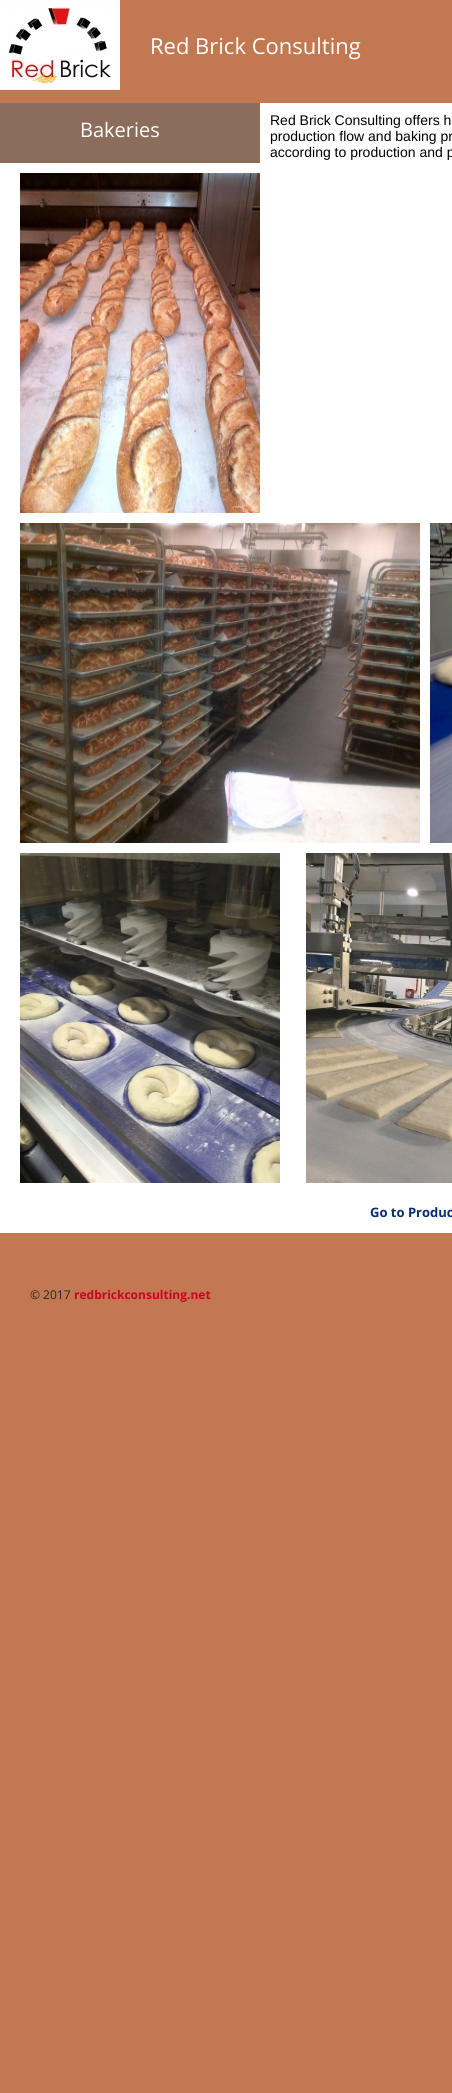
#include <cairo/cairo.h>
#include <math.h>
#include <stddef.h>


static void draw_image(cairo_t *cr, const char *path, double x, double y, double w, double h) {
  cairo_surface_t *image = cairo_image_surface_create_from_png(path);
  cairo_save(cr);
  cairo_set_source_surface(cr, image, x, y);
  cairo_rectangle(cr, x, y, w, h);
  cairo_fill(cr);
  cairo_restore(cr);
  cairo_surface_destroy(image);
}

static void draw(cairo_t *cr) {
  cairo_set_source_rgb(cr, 194 / 255.0, 120 / 255.0, 80 / 255.0);
  cairo_paint(cr);
  draw_image(cr, "images/1.png", 0, 0, 120, 90);
  cairo_set_source_rgb(cr, 1, 1, 1);
  cairo_rectangle(cr, 0, 103, 452, 1130);
  cairo_fill(cr);
  cairo_set_source_rgb(cr, 140 / 255.0, 109 / 255.0, 92 / 255.0);
  cairo_rectangle(cr, 0, 103, 260, 60);
  cairo_fill(cr);
  draw_image(cr, "images/2.png", 20, 173, 240, 340);
  draw_image(cr, "images/3.png", 20, 523, 400, 320);
  draw_image(cr, "images/4.png", 430, 523, 22, 320);
  draw_image(cr, "images/5.png", 20, 853, 260, 330);
  draw_image(cr, "images/6.png", 306, 853, 146, 330);
  cairo_select_font_face(cr, "Open Sans", CAIRO_FONT_SLANT_NORMAL, CAIRO_FONT_WEIGHT_NORMAL);
  cairo_set_font_size(cr, 22);
  cairo_set_source_rgb(cr, 1, 1, 1);
  cairo_move_to(cr, 150, 54);
  cairo_show_text(cr, "Red Brick Consulting");
  cairo_select_font_face(cr, "Liberation Sans", CAIRO_FONT_SLANT_NORMAL, CAIRO_FONT_WEIGHT_NORMAL);
  cairo_set_font_size(cr, 14);
  cairo_set_source_rgb(cr, 0, 0, 0);
  cairo_move_to(cr, 270, 125);
  cairo_show_text(cr, "Red Brick Consulting offers h");
  cairo_move_to(cr, 270, 141);
  cairo_show_text(cr, "production flow and baking pr");
  cairo_move_to(cr, 270, 157);
  cairo_show_text(cr, "according to production and p");
  cairo_select_font_face(cr, "Open Sans", CAIRO_FONT_SLANT_NORMAL, CAIRO_FONT_WEIGHT_NORMAL);
  cairo_set_font_size(cr, 20);
  cairo_set_source_rgb(cr, 1, 1, 1);
  cairo_move_to(cr, 80, 137);
  cairo_show_text(cr, "Bakeries");
  cairo_select_font_face(cr, "Open Sans", CAIRO_FONT_SLANT_NORMAL, CAIRO_FONT_WEIGHT_BOLD);
  cairo_set_font_size(cr, 13);
  cairo_set_source_rgb(cr, 6 / 255.0, 45 / 255.0, 118 / 255.0);
  cairo_move_to(cr, 370, 1217);
  cairo_show_text(cr, "Go to Produc");
  cairo_select_font_face(cr, "Open Sans", CAIRO_FONT_SLANT_NORMAL, CAIRO_FONT_WEIGHT_NORMAL);
  cairo_set_font_size(cr, 12);
  cairo_set_source_rgb(cr, 38 / 255.0, 38 / 255.0, 38 / 255.0);
  cairo_move_to(cr, 30, 1299);
  cairo_show_text(cr, "© 2017");
  cairo_select_font_face(cr, "Open Sans", CAIRO_FONT_SLANT_NORMAL, CAIRO_FONT_WEIGHT_BOLD);
  cairo_set_source_rgb(cr, 207 / 255.0, 0, 35 / 255.0);
  cairo_move_to(cr, 74, 1299);
  cairo_show_text(cr, "redbrickconsulting.net");
}

int main(void) {
  cairo_surface_t *surface = cairo_image_surface_create(CAIRO_FORMAT_RGB24, 452, 2093);
  cairo_t *cr = cairo_create(surface);
  cairo_font_options_t *options = cairo_font_options_create();
  cairo_font_options_set_hint_metrics(options, CAIRO_HINT_METRICS_OFF);
  cairo_font_options_set_hint_style(options, CAIRO_HINT_STYLE_NONE);
  cairo_set_font_options(cr, options);
  cairo_set_miter_limit(cr, 4);
  draw(cr);
  cairo_surface_write_to_png(surface, "out.png");
  cairo_font_options_destroy(options);
  cairo_destroy(cr);
  cairo_surface_destroy(surface);
  return 0;
}
